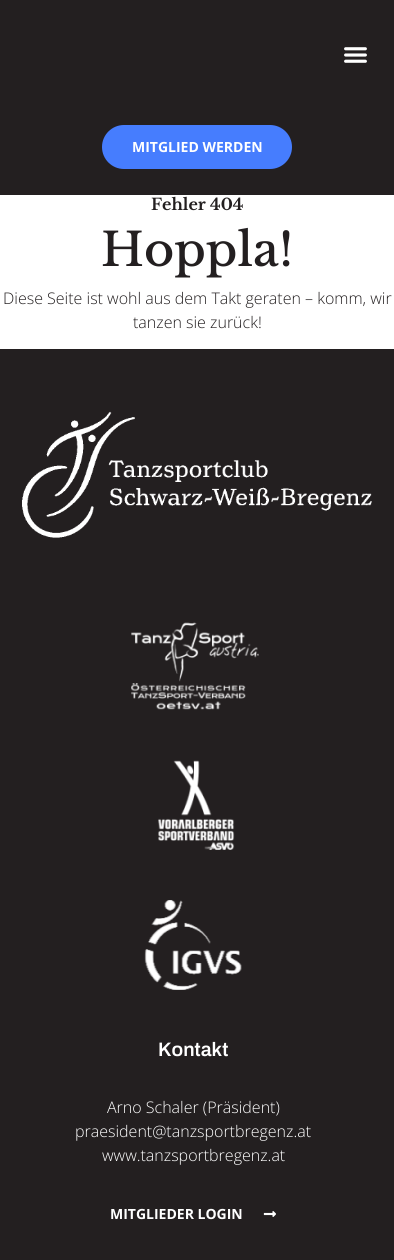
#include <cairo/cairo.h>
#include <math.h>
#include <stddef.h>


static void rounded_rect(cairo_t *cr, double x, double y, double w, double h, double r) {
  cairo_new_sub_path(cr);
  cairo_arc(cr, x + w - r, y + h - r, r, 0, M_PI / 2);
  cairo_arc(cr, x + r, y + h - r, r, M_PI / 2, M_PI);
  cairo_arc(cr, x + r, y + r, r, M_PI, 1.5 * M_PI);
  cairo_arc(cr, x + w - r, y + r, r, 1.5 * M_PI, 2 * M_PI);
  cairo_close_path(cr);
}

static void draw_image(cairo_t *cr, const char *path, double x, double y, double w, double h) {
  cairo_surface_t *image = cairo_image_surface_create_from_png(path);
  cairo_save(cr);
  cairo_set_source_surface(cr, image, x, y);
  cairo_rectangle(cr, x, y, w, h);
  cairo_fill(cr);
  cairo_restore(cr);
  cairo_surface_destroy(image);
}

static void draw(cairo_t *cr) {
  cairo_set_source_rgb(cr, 1, 1, 1);
  cairo_paint(cr);
  cairo_set_source_rgb(cr, 35 / 255.0, 31 / 255.0, 32 / 255.0);
  cairo_rectangle(cr, 0, 0, 394, 195);
  cairo_fill(cr);
  draw_image(cr, "images/1.png", 344, 47, 23, 16);
  cairo_set_source_rgb(cr, 70 / 255.0, 125 / 255.0, 254 / 255.0);
  rounded_rect(cr, 102, 125, 190, 44, 22);
  cairo_fill(cr);
  cairo_set_source_rgb(cr, 35 / 255.0, 31 / 255.0, 32 / 255.0);
  cairo_rectangle(cr, 0, 349, 394, 911);
  cairo_fill(cr);
  draw_image(cr, "images/2.png", 22, 411, 350, 127);
  draw_image(cr, "images/3.png", 131, 622, 128, 88);
  draw_image(cr, "images/4.png", 158, 760, 77, 90);
  draw_image(cr, "images/5.png", 144, 900, 98, 90);
  draw_image(cr, "images/6.png", 263, 1211, 13, 6);
  cairo_select_font_face(cr, "Open Sans", CAIRO_FONT_SLANT_NORMAL, CAIRO_FONT_WEIGHT_BOLD);
  cairo_set_font_size(cr, 14);
  cairo_set_source_rgb(cr, 1, 1, 1);
  cairo_move_to(cr, 132, 152);
  cairo_show_text(cr, "MITGLIED WERDEN");
  cairo_select_font_face(cr, "Libre Baskerville", CAIRO_FONT_SLANT_NORMAL, CAIRO_FONT_WEIGHT_BOLD);
  cairo_set_font_size(cr, 16);
  cairo_set_source_rgb(cr, 35 / 255.0, 31 / 255.0, 32 / 255.0);
  cairo_move_to(cr, 151, 210);
  cairo_show_text(cr, "Fehler 404");
  cairo_select_font_face(cr, "Libre Baskerville Medium", CAIRO_FONT_SLANT_NORMAL, CAIRO_FONT_WEIGHT_NORMAL);
  cairo_set_font_size(cr, 46);
  cairo_move_to(cr, 101, 266);
  cairo_show_text(cr, "Hoppla!");
  cairo_select_font_face(cr, "Open Sans Light", CAIRO_FONT_SLANT_NORMAL, CAIRO_FONT_WEIGHT_NORMAL);
  cairo_set_font_size(cr, 16);
  cairo_move_to(cr, 3, 304);
  cairo_show_text(cr, "Diese Seite ist wohl aus dem Takt geraten – komm, wir");
  cairo_move_to(cr, 133, 328);
  cairo_show_text(cr, "tanzen sie zurück!");
  cairo_select_font_face(cr, "Archivo SemiBold", CAIRO_FONT_SLANT_NORMAL, CAIRO_FONT_WEIGHT_NORMAL);
  cairo_set_font_size(cr, 19.5);
  cairo_set_source_rgb(cr, 1, 1, 1);
  cairo_move_to(cr, 158, 1056);
  cairo_show_text(cr, "Kontakt");
  cairo_select_font_face(cr, "Open Sans Light", CAIRO_FONT_SLANT_NORMAL, CAIRO_FONT_WEIGHT_NORMAL);
  cairo_set_font_size(cr, 16);
  cairo_move_to(cr, 107, 1113);
  cairo_show_text(cr, "Arno Schaler (Präsident)");
  cairo_move_to(cr, 75, 1137);
  cairo_show_text(cr, "praesident@tanzsportbregenz.at");
  cairo_move_to(cr, 102, 1161);
  cairo_show_text(cr, "www.tanzsportbregenz.at");
  cairo_select_font_face(cr, "Open Sans", CAIRO_FONT_SLANT_NORMAL, CAIRO_FONT_WEIGHT_BOLD);
  cairo_set_font_size(cr, 14);
  cairo_move_to(cr, 110, 1219);
  cairo_show_text(cr, "MITGLIEDER LOGIN");
}

int main(void) {
  cairo_surface_t *surface = cairo_image_surface_create(CAIRO_FORMAT_RGB24, 394, 1260);
  cairo_t *cr = cairo_create(surface);
  cairo_font_options_t *options = cairo_font_options_create();
  cairo_font_options_set_hint_metrics(options, CAIRO_HINT_METRICS_OFF);
  cairo_font_options_set_hint_style(options, CAIRO_HINT_STYLE_NONE);
  cairo_set_font_options(cr, options);
  cairo_set_miter_limit(cr, 4);
  draw(cr);
  cairo_surface_write_to_png(surface, "out.png");
  cairo_font_options_destroy(options);
  cairo_destroy(cr);
  cairo_surface_destroy(surface);
  return 0;
}
